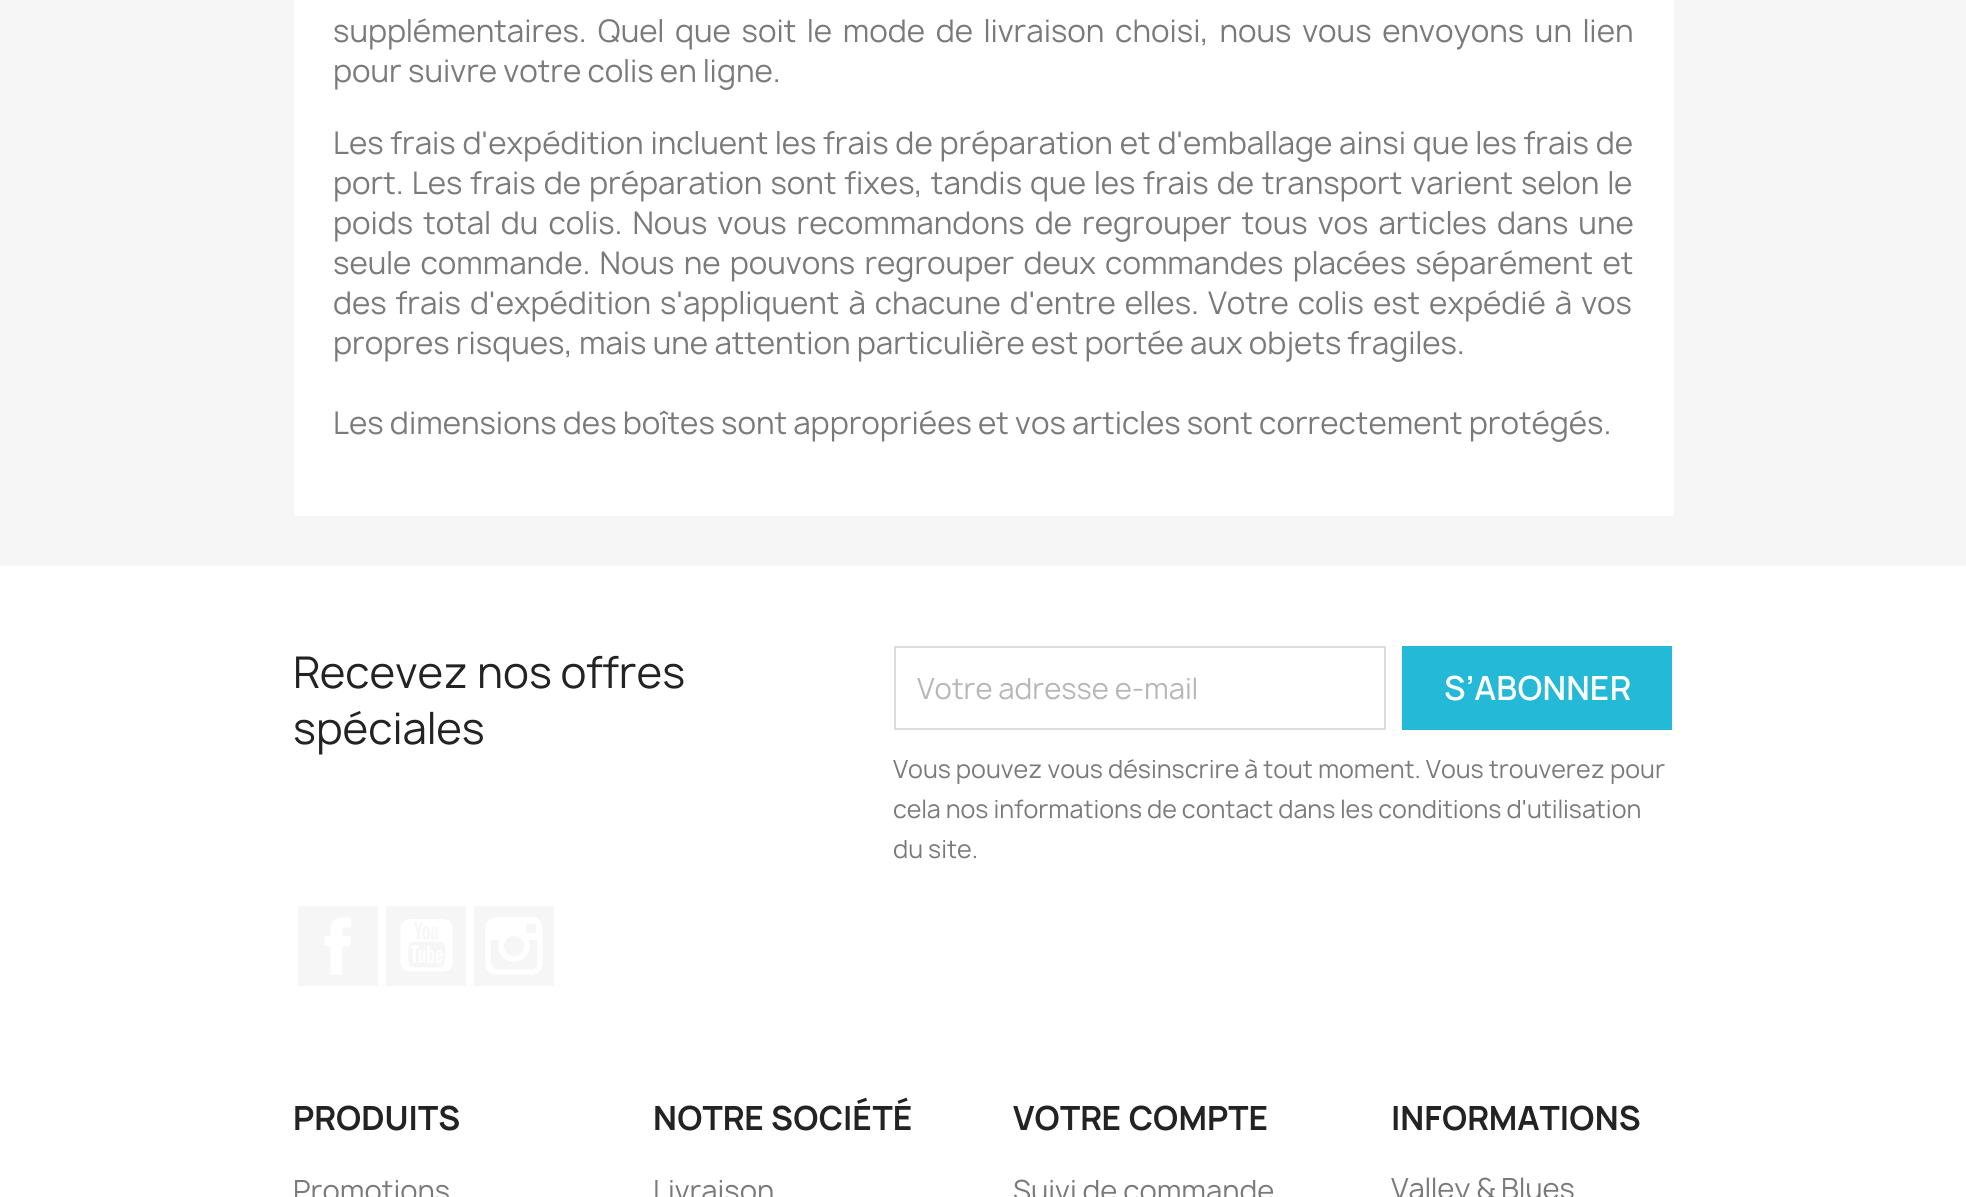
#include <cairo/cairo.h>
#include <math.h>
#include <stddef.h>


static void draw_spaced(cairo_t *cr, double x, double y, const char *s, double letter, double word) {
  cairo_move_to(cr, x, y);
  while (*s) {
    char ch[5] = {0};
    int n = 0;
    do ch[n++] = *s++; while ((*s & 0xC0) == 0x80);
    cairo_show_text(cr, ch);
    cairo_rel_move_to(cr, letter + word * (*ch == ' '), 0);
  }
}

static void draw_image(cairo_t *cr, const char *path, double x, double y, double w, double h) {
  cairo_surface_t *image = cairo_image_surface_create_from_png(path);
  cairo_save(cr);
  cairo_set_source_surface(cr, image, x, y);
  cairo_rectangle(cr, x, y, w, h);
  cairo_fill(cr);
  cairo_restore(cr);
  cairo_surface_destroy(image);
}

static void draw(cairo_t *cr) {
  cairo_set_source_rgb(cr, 1, 1, 1);
  cairo_paint(cr);
  cairo_set_source_rgb(cr, 246 / 255.0, 246 / 255.0, 246 / 255.0);
  cairo_rectangle(cr, 0, 0, 1966, 566);
  cairo_fill(cr);
  cairo_set_source_rgb(cr, 1, 1, 1);
  cairo_rectangle(cr, 294, 0, 1380, 516);
  cairo_fill(cr);
  cairo_rectangle(cr, 895, 647, 490, 82);
  cairo_set_source_rgb(cr, 221 / 255.0, 221 / 255.0, 221 / 255.0);
  cairo_stroke(cr);
  cairo_set_source_rgb(cr, 36 / 255.0, 185 / 255.0, 215 / 255.0);
  cairo_rectangle(cr, 1402, 646, 270, 84);
  cairo_fill(cr);
  cairo_set_source_rgb(cr, 246 / 255.0, 246 / 255.0, 246 / 255.0);
  cairo_rectangle(cr, 298, 906, 80, 80);
  cairo_fill(cr);
  draw_image(cr, "images/1.png", 324, 917, 27, 58);
  cairo_rectangle(cr, 386, 906, 80, 80);
  cairo_fill(cr);
  draw_image(cr, "images/2.png", 400, 919, 53, 53);
  cairo_rectangle(cr, 474, 906, 80, 80);
  cairo_fill(cr);
  draw_image(cr, "images/3.png", 485, 917, 58, 58);
  cairo_select_font_face(cr, "Manrope", CAIRO_FONT_SLANT_NORMAL, CAIRO_FONT_WEIGHT_NORMAL);
  cairo_set_font_size(cr, 30);
  cairo_set_source_rgb(cr, 122 / 255.0, 122 / 255.0, 122 / 255.0);
  draw_spaced(cr, 333, 42, "supplémentaires. Quel que soit le mode de livraison choisi, nous vous envoyons un lien", 0, 4.5);
  cairo_move_to(cr, 333, 82);
  cairo_show_text(cr, "pour suivre votre colis en ligne.");
  draw_spaced(cr, 333, 154, "Les frais d'expédition incluent les frais de préparation et d'emballage ainsi que les frais de", 0, 0.6);
  draw_spaced(cr, 333, 194, "port. Les frais de préparation sont fixes, tandis que les frais de transport varient selon le", 0, 1.8);
  draw_spaced(cr, 333, 234, "poids total du colis. Nous vous recommandons de regrouper tous vos articles dans une", 0, 3.75);
  draw_spaced(cr, 333, 274, "seule commande. Nous ne pouvons regrouper deux commandes placées séparément et", 0, 3);
  draw_spaced(cr, 333, 314, "des frais d'expédition s'appliquent à chacune d'entre elles. Votre colis est expédié à vos", 0, 2.75);
  cairo_move_to(cr, 333, 354);
  cairo_show_text(cr, "propres risques, mais une attention particulière est portée aux objets fragiles.");
  cairo_move_to(cr, 333, 434);
  cairo_show_text(cr, "Les dimensions des boîtes sont appropriées et vos articles sont correctement protégés.");
  cairo_set_font_size(cr, 42);
  cairo_set_source_rgb(cr, 35 / 255.0, 35 / 255.0, 35 / 255.0);
  cairo_move_to(cr, 293, 688);
  cairo_show_text(cr, "Recevez nos offres");
  cairo_move_to(cr, 293, 744);
  cairo_show_text(cr, "spéciales");
  cairo_set_font_size(cr, 28);
  cairo_set_source_rgb(cr, 183 / 255.0, 183 / 255.0, 183 / 255.0);
  cairo_move_to(cr, 917, 699);
  cairo_show_text(cr, "Votre adresse e-mail");
  cairo_select_font_face(cr, "Manrope SemiBold", CAIRO_FONT_SLANT_NORMAL, CAIRO_FONT_WEIGHT_NORMAL);
  cairo_set_font_size(cr, 32);
  cairo_set_source_rgb(cr, 1, 1, 1);
  cairo_move_to(cr, 1444, 700);
  cairo_show_text(cr, "S’ABONNER");
  cairo_select_font_face(cr, "Manrope", CAIRO_FONT_SLANT_NORMAL, CAIRO_FONT_WEIGHT_NORMAL);
  cairo_set_font_size(cr, 24);
  cairo_set_source_rgb(cr, 122 / 255.0, 122 / 255.0, 122 / 255.0);
  cairo_move_to(cr, 893, 778);
  cairo_show_text(cr, "Vous pouvez vous désinscrire à tout moment. Vous trouverez pour");
  cairo_move_to(cr, 893, 818);
  cairo_show_text(cr, "cela nos informations de contact dans les conditions d'utilisation");
  cairo_move_to(cr, 893, 858);
  cairo_show_text(cr, "du site.");
  cairo_select_font_face(cr, "Manrope", CAIRO_FONT_SLANT_NORMAL, CAIRO_FONT_WEIGHT_BOLD);
  cairo_set_font_size(cr, 32);
  cairo_set_source_rgb(cr, 35 / 255.0, 35 / 255.0, 35 / 255.0);
  cairo_move_to(cr, 293, 1130);
  cairo_show_text(cr, "PRODUITS");
  cairo_select_font_face(cr, "Manrope", CAIRO_FONT_SLANT_NORMAL, CAIRO_FONT_WEIGHT_NORMAL);
  cairo_set_font_size(cr, 28);
  cairo_set_source_rgb(cr, 122 / 255.0, 122 / 255.0, 122 / 255.0);
  cairo_move_to(cr, 293, 1201);
  cairo_show_text(cr, "Promotions");
  cairo_select_font_face(cr, "Manrope", CAIRO_FONT_SLANT_NORMAL, CAIRO_FONT_WEIGHT_BOLD);
  cairo_set_font_size(cr, 32);
  cairo_set_source_rgb(cr, 35 / 255.0, 35 / 255.0, 35 / 255.0);
  cairo_move_to(cr, 653, 1130);
  cairo_show_text(cr, "NOTRE SOCIÉTÉ");
  cairo_select_font_face(cr, "Manrope", CAIRO_FONT_SLANT_NORMAL, CAIRO_FONT_WEIGHT_NORMAL);
  cairo_set_font_size(cr, 28);
  cairo_set_source_rgb(cr, 122 / 255.0, 122 / 255.0, 122 / 255.0);
  cairo_move_to(cr, 653, 1201);
  cairo_show_text(cr, "Livraison");
  cairo_select_font_face(cr, "Manrope", CAIRO_FONT_SLANT_NORMAL, CAIRO_FONT_WEIGHT_BOLD);
  cairo_set_font_size(cr, 32);
  cairo_set_source_rgb(cr, 35 / 255.0, 35 / 255.0, 35 / 255.0);
  cairo_move_to(cr, 1013, 1130);
  cairo_show_text(cr, "VOTRE COMPTE");
  cairo_select_font_face(cr, "Manrope", CAIRO_FONT_SLANT_NORMAL, CAIRO_FONT_WEIGHT_NORMAL);
  cairo_set_font_size(cr, 28);
  cairo_set_source_rgb(cr, 122 / 255.0, 122 / 255.0, 122 / 255.0);
  cairo_move_to(cr, 1013, 1201);
  cairo_show_text(cr, "Suivi de commande");
  cairo_select_font_face(cr, "Manrope", CAIRO_FONT_SLANT_NORMAL, CAIRO_FONT_WEIGHT_BOLD);
  cairo_set_font_size(cr, 32);
  cairo_set_source_rgb(cr, 35 / 255.0, 35 / 255.0, 35 / 255.0);
  cairo_move_to(cr, 1391, 1130);
  cairo_show_text(cr, "INFORMATIONS");
  cairo_select_font_face(cr, "Manrope", CAIRO_FONT_SLANT_NORMAL, CAIRO_FONT_WEIGHT_NORMAL);
  cairo_set_font_size(cr, 28);
  cairo_set_source_rgb(cr, 122 / 255.0, 122 / 255.0, 122 / 255.0);
  cairo_move_to(cr, 1391, 1199);
  cairo_show_text(cr, "Valley & Blues");
}

int main(void) {
  cairo_surface_t *surface = cairo_image_surface_create(CAIRO_FORMAT_RGB24, 1966, 1197);
  cairo_t *cr = cairo_create(surface);
  cairo_font_options_t *options = cairo_font_options_create();
  cairo_font_options_set_hint_metrics(options, CAIRO_HINT_METRICS_OFF);
  cairo_font_options_set_hint_style(options, CAIRO_HINT_STYLE_NONE);
  cairo_set_font_options(cr, options);
  cairo_set_miter_limit(cr, 4);
  draw(cr);
  cairo_surface_write_to_png(surface, "out.png");
  cairo_font_options_destroy(options);
  cairo_destroy(cr);
  cairo_surface_destroy(surface);
  return 0;
}
